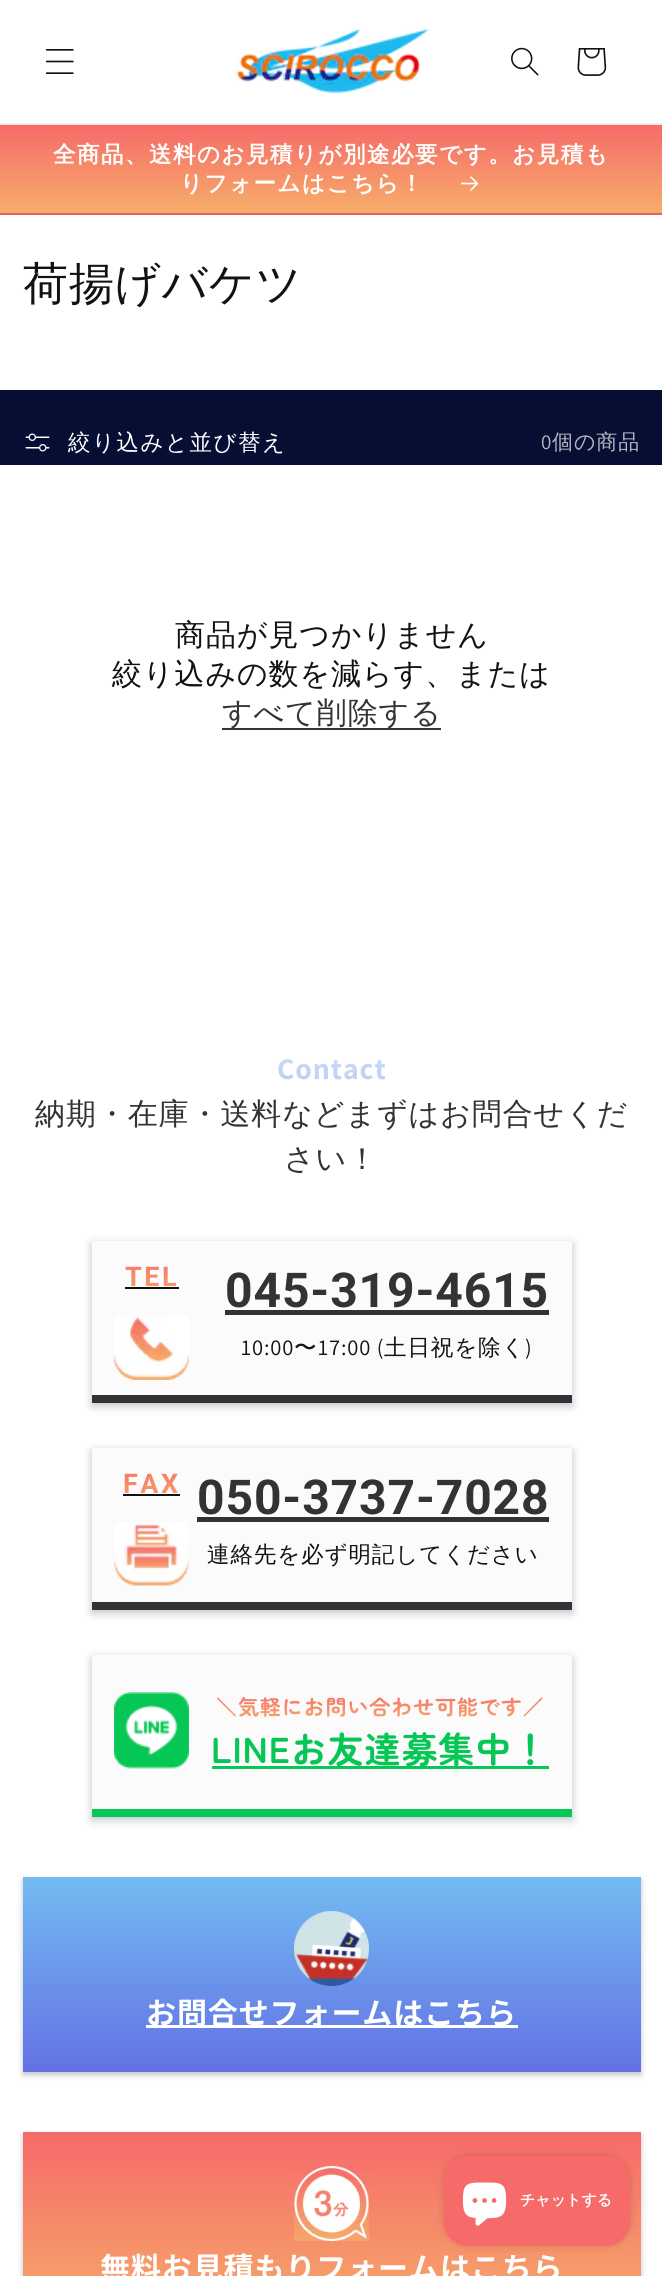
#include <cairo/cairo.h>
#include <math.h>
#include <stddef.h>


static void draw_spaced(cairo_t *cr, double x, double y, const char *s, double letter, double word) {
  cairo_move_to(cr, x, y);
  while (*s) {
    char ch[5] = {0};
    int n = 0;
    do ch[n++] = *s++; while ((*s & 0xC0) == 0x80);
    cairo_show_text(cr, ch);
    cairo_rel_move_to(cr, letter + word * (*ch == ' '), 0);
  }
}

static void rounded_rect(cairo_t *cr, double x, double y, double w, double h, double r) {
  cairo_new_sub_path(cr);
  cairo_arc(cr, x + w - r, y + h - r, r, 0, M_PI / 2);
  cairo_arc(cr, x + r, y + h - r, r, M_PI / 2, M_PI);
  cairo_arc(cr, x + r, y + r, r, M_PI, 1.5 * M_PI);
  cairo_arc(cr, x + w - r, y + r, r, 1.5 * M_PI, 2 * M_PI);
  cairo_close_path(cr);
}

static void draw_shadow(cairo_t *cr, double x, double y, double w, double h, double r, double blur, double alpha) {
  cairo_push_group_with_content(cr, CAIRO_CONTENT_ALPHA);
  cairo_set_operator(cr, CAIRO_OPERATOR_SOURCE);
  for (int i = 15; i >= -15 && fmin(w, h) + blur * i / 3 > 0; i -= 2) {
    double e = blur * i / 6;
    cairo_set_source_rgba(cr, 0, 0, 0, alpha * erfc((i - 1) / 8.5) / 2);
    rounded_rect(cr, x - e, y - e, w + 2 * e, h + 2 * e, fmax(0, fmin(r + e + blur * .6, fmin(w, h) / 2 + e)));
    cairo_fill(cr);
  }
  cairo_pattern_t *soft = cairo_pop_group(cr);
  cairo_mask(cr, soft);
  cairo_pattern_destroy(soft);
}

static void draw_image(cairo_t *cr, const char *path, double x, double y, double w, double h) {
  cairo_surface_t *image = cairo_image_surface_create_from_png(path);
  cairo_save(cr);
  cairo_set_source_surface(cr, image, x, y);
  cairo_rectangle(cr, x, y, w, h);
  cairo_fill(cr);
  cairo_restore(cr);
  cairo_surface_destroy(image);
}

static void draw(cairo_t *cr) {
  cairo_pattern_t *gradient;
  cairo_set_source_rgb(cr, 1, 1, 1);
  cairo_paint(cr);
  cairo_set_source_rgb(cr, 236 / 255.0, 236 / 255.0, 236 / 255.0);
  cairo_rectangle(cr, 0, 123, 662, 2);
  cairo_fill(cr);
  draw_image(cr, "images/1.png", 45, 49, 29, 25);
  draw_image(cr, "images/2.png", 236, 28, 193, 66);
  draw_image(cr, "images/3.png", 511, 47, 28, 29);
  draw_image(cr, "images/4.png", 577, 48, 30, 28);
  gradient = cairo_pattern_create_linear(332, 124, 332, 226);
  cairo_pattern_add_color_stop_rgba(gradient, 0, 246 / 255.0, 106 / 255.0, 106 / 255.0, 1);
  cairo_pattern_add_color_stop_rgba(gradient, 1, 246 / 255.0, 183 / 255.0, 106 / 255.0, 1);
  cairo_set_source(cr, gradient);
  cairo_pattern_destroy(gradient);
  cairo_rectangle(cr, 0, 125, 662, 88);
  cairo_fill(cr);
  cairo_set_source_rgb(cr, 228 / 255.0, 99 / 255.0, 99 / 255.0);
  cairo_rectangle(cr, 0, 213, 662, 2);
  cairo_fill(cr);
  draw_image(cr, "images/5.png", 461, 176, 18, 15);
  cairo_set_source_rgb(cr, 7 / 255.0, 14 / 255.0, 52 / 255.0);
  cairo_rectangle(cr, 0, 390, 662, 75);
  cairo_fill(cr);
  draw_image(cr, "images/6.png", 25, 433, 25, 19);
  cairo_set_source_rgb(cr, 54 / 255.0, 54 / 255.0, 54 / 255.0);
  cairo_rectangle(cr, 222, 728, 219, 2);
  cairo_fill(cr);
  cairo_save(cr);
  cairo_set_fill_rule(cr, CAIRO_FILL_RULE_EVEN_ODD);
  cairo_new_path(cr);
  cairo_move_to(cr, 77, 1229);
  cairo_line_to(cr, 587, 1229);
  cairo_line_to(cr, 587, 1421);
  cairo_line_to(cr, 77, 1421);
  cairo_close_path(cr);
  cairo_move_to(cr, 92, 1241);
  cairo_line_to(cr, 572, 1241);
  cairo_line_to(cr, 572, 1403);
  cairo_line_to(cr, 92, 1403);
  cairo_close_path(cr);
  cairo_clip(cr);
  cairo_set_source_rgb(cr, 7 / 255.0, 14 / 255.0, 52 / 255.0);
  draw_shadow(cr, 92, 1244, 480, 162, 0, 4.5, 0.25);
  cairo_restore(cr);
  cairo_set_source_rgba(cr, 246 / 255.0, 246 / 255.0, 246 / 255.0, 0.4);
  cairo_rectangle(cr, 92, 1241, 480, 154);
  cairo_fill(cr);
  cairo_set_source_rgb(cr, 51 / 255.0, 51 / 255.0, 51 / 255.0);
  cairo_rectangle(cr, 92, 1395, 480, 8);
  cairo_fill(cr);
  cairo_set_source_rgb(cr, 18 / 255.0, 18 / 255.0, 18 / 255.0);
  cairo_rectangle(cr, 125, 1287, 54, 2);
  cairo_fill(cr);
  draw_image(cr, "images/7.png", 114, 1316, 75, 64);
  cairo_set_source_rgb(cr, 51 / 255.0, 51 / 255.0, 51 / 255.0);
  cairo_rectangle(cr, 225, 1310, 324, 5);
  cairo_fill(cr);
  cairo_save(cr);
  cairo_set_fill_rule(cr, CAIRO_FILL_RULE_EVEN_ODD);
  cairo_new_path(cr);
  cairo_move_to(cr, 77, 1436);
  cairo_line_to(cr, 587, 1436);
  cairo_line_to(cr, 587, 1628);
  cairo_line_to(cr, 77, 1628);
  cairo_close_path(cr);
  cairo_move_to(cr, 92, 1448);
  cairo_line_to(cr, 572, 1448);
  cairo_line_to(cr, 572, 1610);
  cairo_line_to(cr, 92, 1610);
  cairo_close_path(cr);
  cairo_clip(cr);
  cairo_set_source_rgb(cr, 7 / 255.0, 14 / 255.0, 52 / 255.0);
  draw_shadow(cr, 92, 1451, 480, 162, 0, 4.5, 0.25);
  cairo_restore(cr);
  cairo_set_source_rgba(cr, 246 / 255.0, 246 / 255.0, 246 / 255.0, 0.4);
  cairo_rectangle(cr, 92, 1448, 480, 154);
  cairo_fill(cr);
  cairo_set_source_rgb(cr, 51 / 255.0, 51 / 255.0, 51 / 255.0);
  cairo_rectangle(cr, 92, 1602, 480, 8);
  cairo_fill(cr);
  cairo_set_source_rgb(cr, 18 / 255.0, 18 / 255.0, 18 / 255.0);
  cairo_rectangle(cr, 123, 1494, 57, 2);
  cairo_fill(cr);
  draw_image(cr, "images/8.png", 114, 1522, 75, 64);
  cairo_set_source_rgb(cr, 51 / 255.0, 51 / 255.0, 51 / 255.0);
  cairo_rectangle(cr, 197, 1517, 352, 5);
  cairo_fill(cr);
  cairo_save(cr);
  cairo_set_fill_rule(cr, CAIRO_FILL_RULE_EVEN_ODD);
  cairo_new_path(cr);
  cairo_move_to(cr, 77, 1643);
  cairo_line_to(cr, 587, 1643);
  cairo_line_to(cr, 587, 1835);
  cairo_line_to(cr, 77, 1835);
  cairo_close_path(cr);
  cairo_move_to(cr, 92, 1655);
  cairo_line_to(cr, 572, 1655);
  cairo_line_to(cr, 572, 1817);
  cairo_line_to(cr, 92, 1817);
  cairo_close_path(cr);
  cairo_clip(cr);
  cairo_set_source_rgb(cr, 7 / 255.0, 14 / 255.0, 52 / 255.0);
  draw_shadow(cr, 92, 1658, 480, 162, 0, 4.5, 0.25);
  cairo_restore(cr);
  cairo_set_source_rgba(cr, 246 / 255.0, 246 / 255.0, 246 / 255.0, 0.4);
  cairo_rectangle(cr, 92, 1655, 480, 154);
  cairo_fill(cr);
  cairo_set_source_rgb(cr, 6 / 255.0, 199 / 255.0, 85 / 255.0);
  cairo_rectangle(cr, 92, 1809, 480, 8);
  cairo_fill(cr);
  draw_image(cr, "images/9.png", 114, 1692, 75, 77);
  cairo_rectangle(cr, 212, 1766, 337, 3);
  cairo_fill(cr);
  cairo_set_source_rgb(cr, 7 / 255.0, 14 / 255.0, 52 / 255.0);
  draw_shadow(cr, 23, 1880, 618, 195, 0, 3, 0.25);
  gradient = cairo_pattern_create_linear(332, 1877, 332, 2101);
  cairo_pattern_add_color_stop_rgba(gradient, 0, 114 / 255.0, 187 / 255.0, 241 / 255.0, 1);
  cairo_pattern_add_color_stop_rgba(gradient, 1, 97 / 255.0, 102 / 255.0, 226 / 255.0, 1);
  cairo_set_source(cr, gradient);
  cairo_pattern_destroy(gradient);
  cairo_rectangle(cr, 23, 1877, 618, 195);
  cairo_fill(cr);
  draw_image(cr, "images/10.png", 294, 1911, 75, 75);
  cairo_set_source_rgb(cr, 1, 1, 1);
  cairo_rectangle(cr, 146, 2025, 372, 3);
  cairo_fill(cr);
  cairo_set_source_rgb(cr, 7 / 255.0, 14 / 255.0, 52 / 255.0);
  draw_shadow(cr, 23, 2135, 618, 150, 0, 3, 0.25);
  gradient = cairo_pattern_create_linear(332, 2132, 332, 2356);
  cairo_pattern_add_color_stop_rgba(gradient, 0, 246 / 255.0, 106 / 255.0, 106 / 255.0, 1);
  cairo_pattern_add_color_stop_rgba(gradient, 1, 246 / 255.0, 183 / 255.0, 106 / 255.0, 1);
  cairo_set_source(cr, gradient);
  cairo_pattern_destroy(gradient);
  cairo_rectangle(cr, 23, 2132, 618, 144);
  cairo_fill(cr);
  draw_image(cr, "images/11.png", 294, 2166, 75, 75);
  cairo_set_source_rgb(cr, 0, 0, 0);
  draw_shadow(cr, 444, 2156, 186, 90, 24, 4, 0.15);
  cairo_set_source_rgb(cr, 246 / 255.0, 106 / 255.0, 106 / 255.0);
  rounded_rect(cr, 444, 2156, 186, 90, 24);
  cairo_fill(cr);
  draw_image(cr, "images/12.png", 462, 2182, 45, 44);
  cairo_select_font_face(cr, "WenQuanYi Zen Hei", CAIRO_FONT_SLANT_NORMAL, CAIRO_FONT_WEIGHT_BOLD);
  cairo_set_font_size(cr, 22.5);
  cairo_set_source_rgb(cr, 1, 1, 1);
  draw_spaced(cr, 53, 162, "全商品、送料のお見積りが別途必要です。お見積も", 1.5, 0);
  draw_spaced(cr, 180, 191, "りフォームはこちら！", 1.5, 0);
  cairo_select_font_face(cr, "WenQuanYi Zen Hei Medium", CAIRO_FONT_SLANT_NORMAL, CAIRO_FONT_WEIGHT_NORMAL);
  cairo_set_font_size(cr, 45);
  cairo_set_source_rgb(cr, 18 / 255.0, 18 / 255.0, 18 / 255.0);
  draw_spaced(cr, 23, 299, "荷揚げバケツ", 0.9, 0);
  cairo_set_font_size(cr, 22.5);
  cairo_set_source_rgb(cr, 1, 1, 1);
  draw_spaced(cr, 68, 450, "絞り込みと並び替え", 1.5, 0);
  cairo_select_font_face(cr, "Assistant", CAIRO_FONT_SLANT_NORMAL, CAIRO_FONT_WEIGHT_NORMAL);
  cairo_set_font_size(cr, 21);
  cairo_set_source_rgb(cr, 181 / 255.0, 183 / 255.0, 194 / 255.0);
  draw_spaced(cr, 541, 449, "0", 0.9, 0);
  cairo_select_font_face(cr, "WenQuanYi Zen Hei Medium", CAIRO_FONT_SLANT_NORMAL, CAIRO_FONT_WEIGHT_NORMAL);
  draw_spaced(cr, 552, 449, "個の商品", 0.9, 0);
  cairo_set_font_size(cr, 30);
  cairo_set_source_rgb(cr, 18 / 255.0, 18 / 255.0, 18 / 255.0);
  draw_spaced(cr, 175, 645, "商品が見つかりません", 0.9, 0);
  draw_spaced(cr, 112, 684, "絞り込みの数を減らす、または", 0.9, 0);
  cairo_set_source_rgb(cr, 51 / 255.0, 51 / 255.0, 51 / 255.0);
  draw_spaced(cr, 222, 723, "すべて削除する", 0.9, 0);
  cairo_select_font_face(cr, "Assistant", CAIRO_FONT_SLANT_NORMAL, CAIRO_FONT_WEIGHT_BOLD);
  gradient = cairo_pattern_create_linear(332, 1046, 332, 1097);
  cairo_pattern_add_color_stop_rgba(gradient, 0, 199 / 255.0, 228 / 255.0, 249 / 255.0, 1);
  cairo_pattern_add_color_stop_rgba(gradient, 1, 192 / 255.0, 194 / 255.0, 243 / 255.0, 1);
  cairo_set_source(cr, gradient);
  cairo_pattern_destroy(gradient);
  draw_spaced(cr, 277, 1079, "Contact", 0.9, 0);
  cairo_select_font_face(cr, "WenQuanYi Zen Hei Medium", CAIRO_FONT_SLANT_NORMAL, CAIRO_FONT_WEIGHT_NORMAL);
  cairo_set_source_rgb(cr, 51 / 255.0, 51 / 255.0, 51 / 255.0);
  draw_spaced(cr, 35, 1124, "納期・在庫・送料などまずはお問合せくだ", 0.9, 0);
  draw_spaced(cr, 284, 1169, "さい！", 0.9, 0);
  cairo_select_font_face(cr, "Roboto", CAIRO_FONT_SLANT_NORMAL, CAIRO_FONT_WEIGHT_BOLD);
  cairo_set_font_size(cr, 27);
  gradient = cairo_pattern_create_linear(152, 1254, 152, 1307);
  cairo_pattern_add_color_stop_rgba(gradient, 0, 246 / 255.0, 106 / 255.0, 106 / 255.0, 1);
  cairo_pattern_add_color_stop_rgba(gradient, 1, 246 / 255.0, 183 / 255.0, 106 / 255.0, 1);
  cairo_set_source(cr, gradient);
  cairo_pattern_destroy(gradient);
  draw_spaced(cr, 125, 1286, "TEL", 2.5, 0);
  cairo_set_font_size(cr, 48);
  cairo_set_source_rgb(cr, 51 / 255.0, 51 / 255.0, 51 / 255.0);
  draw_spaced(cr, 225, 1307, "045-319-4615", 0.9, 0);
  cairo_select_font_face(cr, "Assistant", CAIRO_FONT_SLANT_NORMAL, CAIRO_FONT_WEIGHT_NORMAL);
  cairo_set_font_size(cr, 22.5);
  cairo_set_source_rgb(cr, 18 / 255.0, 18 / 255.0, 18 / 255.0);
  draw_spaced(cr, 241, 1355, "10:00", 0.9, 0);
  cairo_select_font_face(cr, "WenQuanYi Zen Hei Medium", CAIRO_FONT_SLANT_NORMAL, CAIRO_FONT_WEIGHT_NORMAL);
  draw_spaced(cr, 294, 1355, "〜", 0.9, 0);
  cairo_select_font_face(cr, "Assistant", CAIRO_FONT_SLANT_NORMAL, CAIRO_FONT_WEIGHT_NORMAL);
  draw_spaced(cr, 318, 1355, "17:00 (", 0.9, 0);
  cairo_select_font_face(cr, "WenQuanYi Zen Hei Medium", CAIRO_FONT_SLANT_NORMAL, CAIRO_FONT_WEIGHT_NORMAL);
  draw_spaced(cr, 384, 1355, "土日祝を除く", 0.9, 0);
  cairo_select_font_face(cr, "Assistant", CAIRO_FONT_SLANT_NORMAL, CAIRO_FONT_WEIGHT_NORMAL);
  draw_spaced(cr, 525, 1355, ")", 0.9, 0);
  cairo_select_font_face(cr, "Roboto", CAIRO_FONT_SLANT_NORMAL, CAIRO_FONT_WEIGHT_BOLD);
  cairo_set_font_size(cr, 27);
  gradient = cairo_pattern_create_linear(152, 1461, 152, 1514);
  cairo_pattern_add_color_stop_rgba(gradient, 0, 246 / 255.0, 106 / 255.0, 106 / 255.0, 1);
  cairo_pattern_add_color_stop_rgba(gradient, 1, 246 / 255.0, 183 / 255.0, 106 / 255.0, 1);
  cairo_set_source(cr, gradient);
  cairo_pattern_destroy(gradient);
  draw_spaced(cr, 123, 1493, "FAX", 2.5, 0);
  cairo_set_font_size(cr, 48);
  cairo_set_source_rgb(cr, 51 / 255.0, 51 / 255.0, 51 / 255.0);
  draw_spaced(cr, 197, 1514, "050-3737-7028", 0.9, 0);
  cairo_select_font_face(cr, "WenQuanYi Zen Hei Medium", CAIRO_FONT_SLANT_NORMAL, CAIRO_FONT_WEIGHT_NORMAL);
  cairo_set_font_size(cr, 22.5);
  cairo_set_source_rgb(cr, 18 / 255.0, 18 / 255.0, 18 / 255.0);
  draw_spaced(cr, 207, 1562, "連絡先を必ず明記してください", 0.9, 0);
  cairo_select_font_face(cr, "Zen Maru Gothic", CAIRO_FONT_SLANT_NORMAL, CAIRO_FONT_WEIGHT_BOLD);
  cairo_set_font_size(cr, 21);
  gradient = cairo_pattern_create_linear(380, 1691, 380, 1727);
  cairo_pattern_add_color_stop_rgba(gradient, 0, 246 / 255.0, 106 / 255.0, 106 / 255.0, 1);
  cairo_pattern_add_color_stop_rgba(gradient, 1, 246 / 255.0, 183 / 255.0, 106 / 255.0, 1);
  cairo_set_source(cr, gradient);
  cairo_pattern_destroy(gradient);
  draw_spaced(cr, 216, 1715, "＼気軽にお問い合わせ可能です／", 0.9, 0);
  cairo_set_font_size(cr, 36);
  cairo_set_source_rgb(cr, 6 / 255.0, 199 / 255.0, 85 / 255.0);
  draw_spaced(cr, 211, 1763, "LINEお友達募集中！", 0.9, 0);
  cairo_select_font_face(cr, "Noto Sans JP", CAIRO_FONT_SLANT_NORMAL, CAIRO_FONT_WEIGHT_BOLD);
  cairo_set_font_size(cr, 30);
  cairo_set_source_rgb(cr, 1, 1, 1);
  draw_spaced(cr, 146, 2024, "お問合せフォームはこちら", 0.9, 0);
  draw_spaced(cr, 100, 2279, "無料お見積もりフォームはこちら", 0.9, 0);
  cairo_select_font_face(cr, "WenQuanYi Zen Hei", CAIRO_FONT_SLANT_NORMAL, CAIRO_FONT_WEIGHT_BOLD);
  cairo_set_font_size(cr, 15);
  cairo_move_to(cr, 520, 2205);
  cairo_show_text(cr, "チャットする");
}

int main(void) {
  cairo_surface_t *surface = cairo_image_surface_create(CAIRO_FORMAT_RGB24, 662, 2276);
  cairo_t *cr = cairo_create(surface);
  cairo_font_options_t *options = cairo_font_options_create();
  cairo_font_options_set_hint_metrics(options, CAIRO_HINT_METRICS_OFF);
  cairo_font_options_set_hint_style(options, CAIRO_HINT_STYLE_NONE);
  cairo_set_font_options(cr, options);
  cairo_set_miter_limit(cr, 4);
  draw(cr);
  cairo_surface_write_to_png(surface, "out.png");
  cairo_font_options_destroy(options);
  cairo_destroy(cr);
  cairo_surface_destroy(surface);
  return 0;
}
